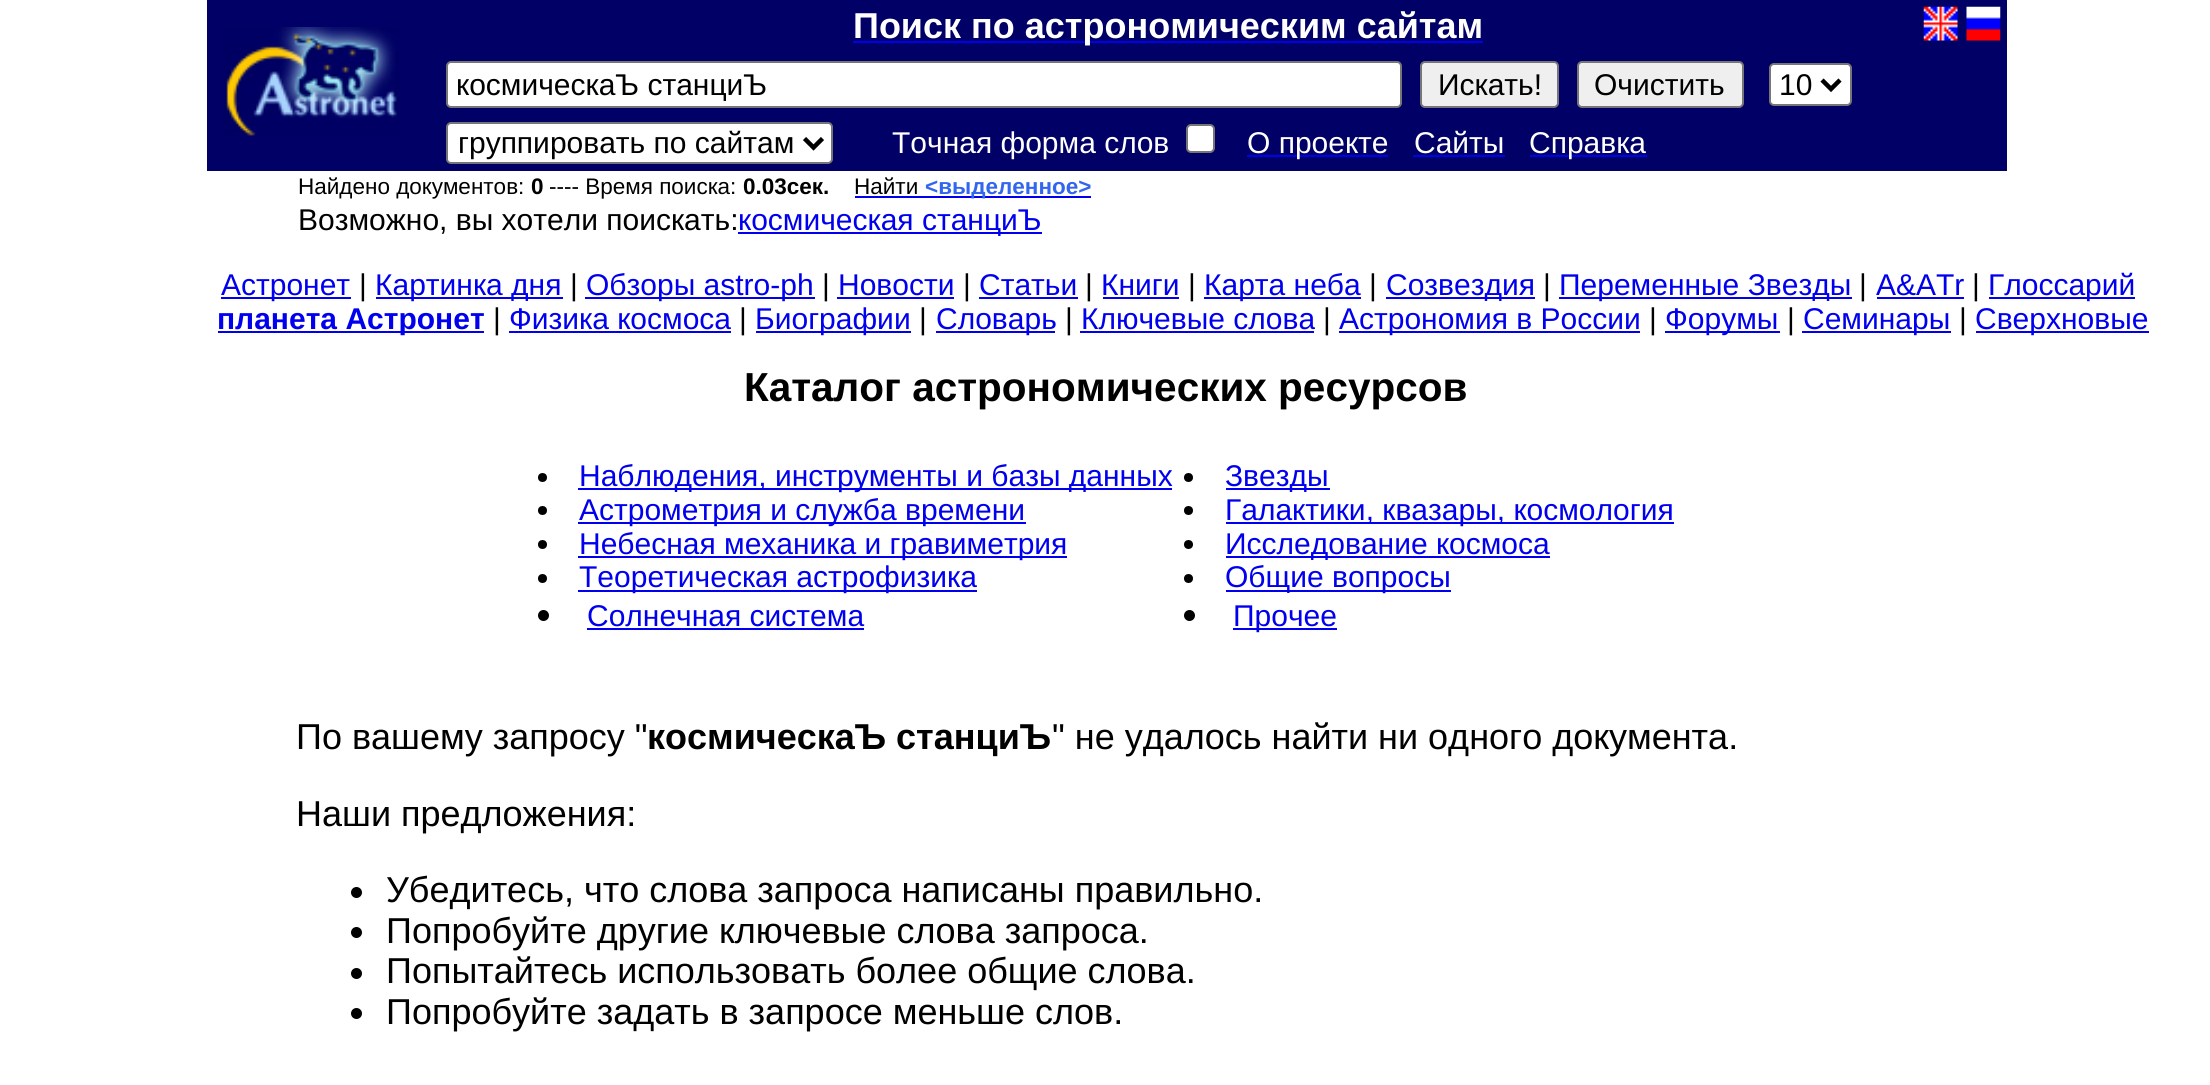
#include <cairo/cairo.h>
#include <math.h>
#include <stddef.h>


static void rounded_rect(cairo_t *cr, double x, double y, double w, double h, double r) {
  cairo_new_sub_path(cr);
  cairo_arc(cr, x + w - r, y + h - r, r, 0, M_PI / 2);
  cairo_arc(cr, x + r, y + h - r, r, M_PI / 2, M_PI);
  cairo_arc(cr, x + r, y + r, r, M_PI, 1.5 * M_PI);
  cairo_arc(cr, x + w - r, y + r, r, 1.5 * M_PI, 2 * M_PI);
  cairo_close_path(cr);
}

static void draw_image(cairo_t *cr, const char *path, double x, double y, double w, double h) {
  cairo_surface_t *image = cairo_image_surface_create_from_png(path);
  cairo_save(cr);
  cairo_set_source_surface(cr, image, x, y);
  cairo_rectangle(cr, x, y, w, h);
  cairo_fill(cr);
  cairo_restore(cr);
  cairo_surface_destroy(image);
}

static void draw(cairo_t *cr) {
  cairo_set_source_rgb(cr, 1, 1, 1);
  cairo_paint(cr);
  cairo_set_source_rgb(cr, 0, 0, 102 / 255.0);
  cairo_rectangle(cr, 207, 0, 1800, 171);
  cairo_fill(cr);
  draw_image(cr, "images/1.png", 223, 27, 177, 109);
  cairo_set_source_rgb(cr, 0, 0, 238 / 255.0);
  cairo_rectangle(cr, 853, 41, 630, 2);
  cairo_fill(cr);
  draw_image(cr, "images/2.png", 1923, 6, 35, 35);
  draw_image(cr, "images/3.png", 1966, 6, 35, 35);
  cairo_set_source_rgb(cr, 1, 1, 1);
  rounded_rect(cr, 447, 62, 954, 45, 4);
  cairo_fill_preserve(cr);
  cairo_set_source_rgb(cr, 118 / 255.0, 118 / 255.0, 118 / 255.0);
  cairo_stroke(cr);
  cairo_set_source_rgb(cr, 239 / 255.0, 239 / 255.0, 239 / 255.0);
  rounded_rect(cr, 1421, 62, 137, 45, 4);
  cairo_fill_preserve(cr);
  cairo_set_source_rgb(cr, 118 / 255.0, 118 / 255.0, 118 / 255.0);
  cairo_stroke(cr);
  cairo_set_source_rgb(cr, 239 / 255.0, 239 / 255.0, 239 / 255.0);
  rounded_rect(cr, 1578, 62, 165, 45, 4);
  cairo_fill_preserve(cr);
  cairo_set_source_rgb(cr, 118 / 255.0, 118 / 255.0, 118 / 255.0);
  cairo_stroke(cr);
  cairo_set_source_rgb(cr, 1, 1, 1);
  rounded_rect(cr, 1770, 64, 81, 41, 4);
  cairo_fill_preserve(cr);
  cairo_set_source_rgb(cr, 118 / 255.0, 118 / 255.0, 118 / 255.0);
  cairo_stroke(cr);
  cairo_new_path(cr);
  cairo_move_to(cr, 1822, 80);
  cairo_line_to(cr, 1831, 89);
  cairo_line_to(cr, 1840, 80);
  cairo_set_source_rgb(cr, 0, 0, 0);
  cairo_set_line_width(cr, 4.5);
  cairo_stroke(cr);
  cairo_set_source_rgb(cr, 1, 1, 1);
  rounded_rect(cr, 447, 123, 385, 40, 4);
  cairo_fill_preserve(cr);
  cairo_set_source_rgb(cr, 118 / 255.0, 118 / 255.0, 118 / 255.0);
  cairo_set_line_width(cr, 2);
  cairo_stroke(cr);
  cairo_new_path(cr);
  cairo_move_to(cr, 804.5, 138.5);
  cairo_line_to(cr, 813.5, 147.5);
  cairo_line_to(cr, 822.5, 138.5);
  cairo_set_source_rgb(cr, 0, 0, 0);
  cairo_set_line_width(cr, 4.5);
  cairo_stroke(cr);
  cairo_set_source_rgb(cr, 1, 1, 1);
  rounded_rect(cr, 1187, 125, 27, 27, 4);
  cairo_fill_preserve(cr);
  cairo_set_source_rgb(cr, 118 / 255.0, 118 / 255.0, 118 / 255.0);
  cairo_set_line_width(cr, 2);
  cairo_stroke(cr);
  cairo_set_source_rgb(cr, 0, 0, 238 / 255.0);
  cairo_rectangle(cr, 1247, 155, 141, 2);
  cairo_fill(cr);
  cairo_rectangle(cr, 1413, 155, 92, 2);
  cairo_fill(cr);
  cairo_rectangle(cr, 1530, 155, 117, 2);
  cairo_fill(cr);
  cairo_rectangle(cr, 855, 196, 236, 2);
  cairo_fill(cr);
  cairo_rectangle(cr, 738, 232, 304, 2);
  cairo_fill(cr);
  cairo_rectangle(cr, 221, 297, 130, 2);
  cairo_fill(cr);
  cairo_rectangle(cr, 376, 297, 187, 2);
  cairo_fill(cr);
  cairo_rectangle(cr, 585, 297, 230, 2);
  cairo_fill(cr);
  cairo_rectangle(cr, 837, 297, 117, 2);
  cairo_fill(cr);
  cairo_rectangle(cr, 979, 297, 99, 2);
  cairo_fill(cr);
  cairo_rectangle(cr, 1103, 297, 76, 2);
  cairo_fill(cr);
  cairo_rectangle(cr, 1204, 297, 157, 2);
  cairo_fill(cr);
  cairo_rectangle(cr, 1386, 297, 149, 2);
  cairo_fill(cr);
  cairo_rectangle(cr, 1559, 297, 293, 2);
  cairo_fill(cr);
  cairo_rectangle(cr, 1877, 297, 87, 2);
  cairo_fill(cr);
  cairo_rectangle(cr, 1989, 297, 146, 2);
  cairo_fill(cr);
  cairo_rectangle(cr, 218, 331, 266, 2);
  cairo_fill(cr);
  cairo_rectangle(cr, 509, 331, 222, 2);
  cairo_fill(cr);
  cairo_rectangle(cr, 756, 331, 155, 2);
  cairo_fill(cr);
  cairo_rectangle(cr, 936, 331, 119, 2);
  cairo_fill(cr);
  cairo_rectangle(cr, 1080, 331, 234, 2);
  cairo_fill(cr);
  cairo_rectangle(cr, 1339, 331, 301, 2);
  cairo_fill(cr);
  cairo_rectangle(cr, 1665, 331, 115, 2);
  cairo_fill(cr);
  cairo_rectangle(cr, 1802, 331, 149, 2);
  cairo_fill(cr);
  cairo_rectangle(cr, 1976, 331, 173, 2);
  cairo_fill(cr);
  cairo_set_source_rgb(cr, 0, 0, 0);
  cairo_arc(cr, 542.5, 477.5, 4.5, 0, 2 * M_PI);
  cairo_fill(cr);
  cairo_set_source_rgb(cr, 0, 0, 238 / 255.0);
  cairo_rectangle(cr, 578, 488, 594, 2);
  cairo_fill(cr);
  cairo_set_source_rgb(cr, 0, 0, 0);
  cairo_arc(cr, 542.5, 510.5, 4.5, 0, 2 * M_PI);
  cairo_fill(cr);
  cairo_set_source_rgb(cr, 0, 0, 238 / 255.0);
  cairo_rectangle(cr, 578, 522, 448, 2);
  cairo_fill(cr);
  cairo_set_source_rgb(cr, 0, 0, 0);
  cairo_arc(cr, 542.5, 544.5, 4.5, 0, 2 * M_PI);
  cairo_fill(cr);
  cairo_set_source_rgb(cr, 0, 0, 238 / 255.0);
  cairo_rectangle(cr, 578, 556, 489, 2);
  cairo_fill(cr);
  cairo_set_source_rgb(cr, 0, 0, 0);
  cairo_arc(cr, 542.5, 578.5, 4.5, 0, 2 * M_PI);
  cairo_fill(cr);
  cairo_set_source_rgb(cr, 0, 0, 238 / 255.0);
  cairo_rectangle(cr, 578, 590, 399, 2);
  cairo_fill(cr);
  cairo_set_source_rgb(cr, 0, 0, 0);
  cairo_arc(cr, 543.5, 615.5, 5.5, 0, 2 * M_PI);
  cairo_fill(cr);
  cairo_set_source_rgb(cr, 0, 0, 238 / 255.0);
  cairo_rectangle(cr, 587, 628, 277, 2);
  cairo_fill(cr);
  cairo_set_source_rgb(cr, 0, 0, 0);
  cairo_arc(cr, 1188.5, 477.5, 4.5, 0, 2 * M_PI);
  cairo_fill(cr);
  cairo_set_source_rgb(cr, 0, 0, 238 / 255.0);
  cairo_rectangle(cr, 1226, 488, 104, 2);
  cairo_fill(cr);
  cairo_set_source_rgb(cr, 0, 0, 0);
  cairo_arc(cr, 1188.5, 510.5, 4.5, 0, 2 * M_PI);
  cairo_fill(cr);
  cairo_set_source_rgb(cr, 0, 0, 238 / 255.0);
  cairo_rectangle(cr, 1226, 522, 448, 2);
  cairo_fill(cr);
  cairo_set_source_rgb(cr, 0, 0, 0);
  cairo_arc(cr, 1188.5, 544.5, 4.5, 0, 2 * M_PI);
  cairo_fill(cr);
  cairo_set_source_rgb(cr, 0, 0, 238 / 255.0);
  cairo_rectangle(cr, 1226, 556, 324, 2);
  cairo_fill(cr);
  cairo_set_source_rgb(cr, 0, 0, 0);
  cairo_arc(cr, 1188.5, 578.5, 4.5, 0, 2 * M_PI);
  cairo_fill(cr);
  cairo_set_source_rgb(cr, 0, 0, 238 / 255.0);
  cairo_rectangle(cr, 1226, 590, 225, 2);
  cairo_fill(cr);
  cairo_set_source_rgb(cr, 0, 0, 0);
  cairo_arc(cr, 1189.5, 615.5, 5.5, 0, 2 * M_PI);
  cairo_fill(cr);
  cairo_set_source_rgb(cr, 0, 0, 238 / 255.0);
  cairo_rectangle(cr, 1233, 628, 104, 2);
  cairo_fill(cr);
  cairo_set_source_rgb(cr, 0, 0, 0);
  cairo_arc(cr, 356.5, 892.5, 5.5, 0, 2 * M_PI);
  cairo_fill(cr);
  cairo_arc(cr, 356.5, 932.5, 5.5, 0, 2 * M_PI);
  cairo_fill(cr);
  cairo_arc(cr, 356.5, 973.5, 5.5, 0, 2 * M_PI);
  cairo_fill(cr);
  cairo_arc(cr, 356.5, 1013.5, 5.5, 0, 2 * M_PI);
  cairo_fill(cr);
  cairo_select_font_face(cr, "Liberation Sans", CAIRO_FONT_SLANT_NORMAL, CAIRO_FONT_WEIGHT_BOLD);
  cairo_set_font_size(cr, 36);
  cairo_set_source_rgb(cr, 1, 1, 1);
  cairo_move_to(cr, 853, 38);
  cairo_show_text(cr, "Поиск по астрономическим сайтам");
  cairo_select_font_face(cr, "Liberation Sans", CAIRO_FONT_SLANT_NORMAL, CAIRO_FONT_WEIGHT_NORMAL);
  cairo_set_font_size(cr, 30);
  cairo_set_source_rgb(cr, 0, 0, 0);
  cairo_move_to(cr, 456, 95);
  cairo_show_text(cr, "космическаЪ станциЪ");
  cairo_move_to(cr, 1438, 95);
  cairo_show_text(cr, "Искать!");
  cairo_move_to(cr, 1594, 95);
  cairo_show_text(cr, "Очистить");
  cairo_move_to(cr, 1779, 95);
  cairo_show_text(cr, "10");
  cairo_move_to(cr, 458, 153);
  cairo_show_text(cr, "группировать по сайтам");
  cairo_set_source_rgb(cr, 1, 1, 1);
  cairo_move_to(cr, 892, 153);
  cairo_show_text(cr, "Точная форма слов");
  cairo_move_to(cr, 1247, 153);
  cairo_show_text(cr, "О проекте");
  cairo_move_to(cr, 1414, 153);
  cairo_show_text(cr, "Сайты");
  cairo_move_to(cr, 1529, 153);
  cairo_show_text(cr, "Справка");
  cairo_set_font_size(cr, 22.5);
  cairo_set_source_rgb(cr, 0, 0, 0);
  cairo_move_to(cr, 298, 194);
  cairo_show_text(cr, "Найдено документов:");
  cairo_select_font_face(cr, "Liberation Sans", CAIRO_FONT_SLANT_NORMAL, CAIRO_FONT_WEIGHT_BOLD);
  cairo_move_to(cr, 531, 194);
  cairo_show_text(cr, "0");
  cairo_select_font_face(cr, "Liberation Sans", CAIRO_FONT_SLANT_NORMAL, CAIRO_FONT_WEIGHT_NORMAL);
  cairo_move_to(cr, 549, 194);
  cairo_show_text(cr, "---- Время поиска:");
  cairo_select_font_face(cr, "Liberation Sans", CAIRO_FONT_SLANT_NORMAL, CAIRO_FONT_WEIGHT_BOLD);
  cairo_move_to(cr, 743, 194);
  cairo_show_text(cr, "0.03сек.");
  cairo_select_font_face(cr, "Liberation Sans", CAIRO_FONT_SLANT_NORMAL, CAIRO_FONT_WEIGHT_NORMAL);
  cairo_move_to(cr, 854, 194);
  cairo_show_text(cr, "Найти");
  cairo_select_font_face(cr, "Liberation Sans", CAIRO_FONT_SLANT_NORMAL, CAIRO_FONT_WEIGHT_BOLD);
  cairo_set_source_rgb(cr, 51 / 255.0, 102 / 255.0, 238 / 255.0);
  cairo_move_to(cr, 925, 194);
  cairo_show_text(cr, "<выделенное>");
  cairo_select_font_face(cr, "Liberation Sans", CAIRO_FONT_SLANT_NORMAL, CAIRO_FONT_WEIGHT_NORMAL);
  cairo_set_font_size(cr, 30);
  cairo_set_source_rgb(cr, 0, 0, 0);
  cairo_move_to(cr, 298, 230);
  cairo_show_text(cr, "Возможно, вы хотели поискать:");
  cairo_set_source_rgb(cr, 0, 0, 238 / 255.0);
  cairo_move_to(cr, 738, 230);
  cairo_show_text(cr, "космическая станциЪ");
  cairo_move_to(cr, 221, 295);
  cairo_show_text(cr, "Астронет");
  cairo_set_source_rgb(cr, 0, 0, 0);
  cairo_move_to(cr, 359, 295);
  cairo_show_text(cr, "|");
  cairo_set_source_rgb(cr, 0, 0, 238 / 255.0);
  cairo_move_to(cr, 375, 295);
  cairo_show_text(cr, "Картинка дня");
  cairo_set_source_rgb(cr, 0, 0, 0);
  cairo_move_to(cr, 570, 295);
  cairo_show_text(cr, "|");
  cairo_set_source_rgb(cr, 0, 0, 238 / 255.0);
  cairo_move_to(cr, 586, 295);
  cairo_show_text(cr, "Обзоры astro-ph");
  cairo_set_source_rgb(cr, 0, 0, 0);
  cairo_move_to(cr, 822, 295);
  cairo_show_text(cr, "|");
  cairo_set_source_rgb(cr, 0, 0, 238 / 255.0);
  cairo_move_to(cr, 838, 295);
  cairo_show_text(cr, "Новости");
  cairo_set_source_rgb(cr, 0, 0, 0);
  cairo_move_to(cr, 963, 295);
  cairo_show_text(cr, "|");
  cairo_set_source_rgb(cr, 0, 0, 238 / 255.0);
  cairo_move_to(cr, 979, 295);
  cairo_show_text(cr, "Статьи");
  cairo_set_source_rgb(cr, 0, 0, 0);
  cairo_move_to(cr, 1085, 295);
  cairo_show_text(cr, "|");
  cairo_set_source_rgb(cr, 0, 0, 238 / 255.0);
  cairo_move_to(cr, 1101, 295);
  cairo_show_text(cr, "Книги");
  cairo_set_source_rgb(cr, 0, 0, 0);
  cairo_move_to(cr, 1188, 295);
  cairo_show_text(cr, "|");
  cairo_set_source_rgb(cr, 0, 0, 238 / 255.0);
  cairo_move_to(cr, 1204, 295);
  cairo_show_text(cr, "Карта неба");
  cairo_set_source_rgb(cr, 0, 0, 0);
  cairo_move_to(cr, 1369, 295);
  cairo_show_text(cr, "|");
  cairo_set_source_rgb(cr, 0, 0, 238 / 255.0);
  cairo_move_to(cr, 1386, 295);
  cairo_show_text(cr, "Созвездия");
  cairo_set_source_rgb(cr, 0, 0, 0);
  cairo_move_to(cr, 1543, 295);
  cairo_show_text(cr, "|");
  cairo_set_source_rgb(cr, 0, 0, 238 / 255.0);
  cairo_move_to(cr, 1559, 295);
  cairo_show_text(cr, "Переменные Звезды");
  cairo_set_source_rgb(cr, 0, 0, 0);
  cairo_move_to(cr, 1859, 295);
  cairo_show_text(cr, "|");
  cairo_set_source_rgb(cr, 0, 0, 238 / 255.0);
  cairo_move_to(cr, 1876, 295);
  cairo_show_text(cr, "A&ATr");
  cairo_set_source_rgb(cr, 0, 0, 0);
  cairo_move_to(cr, 1972, 295);
  cairo_show_text(cr, "|");
  cairo_set_source_rgb(cr, 0, 0, 238 / 255.0);
  cairo_move_to(cr, 1988, 295);
  cairo_show_text(cr, "Глоссарий");
  cairo_select_font_face(cr, "Liberation Sans", CAIRO_FONT_SLANT_NORMAL, CAIRO_FONT_WEIGHT_BOLD);
  cairo_move_to(cr, 217, 329);
  cairo_show_text(cr, "планета Астронет");
  cairo_select_font_face(cr, "Liberation Sans", CAIRO_FONT_SLANT_NORMAL, CAIRO_FONT_WEIGHT_NORMAL);
  cairo_set_source_rgb(cr, 0, 0, 0);
  cairo_move_to(cr, 493, 329);
  cairo_show_text(cr, "|");
  cairo_set_source_rgb(cr, 0, 0, 238 / 255.0);
  cairo_move_to(cr, 509, 329);
  cairo_show_text(cr, "Физика космоса");
  cairo_set_source_rgb(cr, 0, 0, 0);
  cairo_move_to(cr, 739, 329);
  cairo_show_text(cr, "|");
  cairo_set_source_rgb(cr, 0, 0, 238 / 255.0);
  cairo_move_to(cr, 755, 329);
  cairo_show_text(cr, "Биографии");
  cairo_set_source_rgb(cr, 0, 0, 0);
  cairo_move_to(cr, 919, 329);
  cairo_show_text(cr, "|");
  cairo_set_source_rgb(cr, 0, 0, 238 / 255.0);
  cairo_move_to(cr, 936, 329);
  cairo_show_text(cr, "Словарь");
  cairo_set_source_rgb(cr, 0, 0, 0);
  cairo_move_to(cr, 1065, 329);
  cairo_show_text(cr, "|");
  cairo_set_source_rgb(cr, 0, 0, 238 / 255.0);
  cairo_move_to(cr, 1081, 329);
  cairo_show_text(cr, "Ключевые слова");
  cairo_set_source_rgb(cr, 0, 0, 0);
  cairo_move_to(cr, 1323, 329);
  cairo_show_text(cr, "|");
  cairo_set_source_rgb(cr, 0, 0, 238 / 255.0);
  cairo_move_to(cr, 1339, 329);
  cairo_show_text(cr, "Астрономия в России");
  cairo_set_source_rgb(cr, 0, 0, 0);
  cairo_move_to(cr, 1649, 329);
  cairo_show_text(cr, "|");
  cairo_set_source_rgb(cr, 0, 0, 238 / 255.0);
  cairo_move_to(cr, 1665, 329);
  cairo_show_text(cr, "Форумы");
  cairo_set_source_rgb(cr, 0, 0, 0);
  cairo_move_to(cr, 1787, 329);
  cairo_show_text(cr, "|");
  cairo_set_source_rgb(cr, 0, 0, 238 / 255.0);
  cairo_move_to(cr, 1803, 329);
  cairo_show_text(cr, "Семинары");
  cairo_set_source_rgb(cr, 0, 0, 0);
  cairo_move_to(cr, 1959, 329);
  cairo_show_text(cr, "|");
  cairo_set_source_rgb(cr, 0, 0, 238 / 255.0);
  cairo_move_to(cr, 1975, 329);
  cairo_show_text(cr, "Сверхновые");
  cairo_select_font_face(cr, "Liberation Sans", CAIRO_FONT_SLANT_NORMAL, CAIRO_FONT_WEIGHT_BOLD);
  cairo_set_font_size(cr, 40.5);
  cairo_set_source_rgb(cr, 0, 0, 0);
  cairo_move_to(cr, 744, 401);
  cairo_show_text(cr, "Каталог астрономических ресурсов");
  cairo_select_font_face(cr, "Liberation Sans", CAIRO_FONT_SLANT_NORMAL, CAIRO_FONT_WEIGHT_NORMAL);
  cairo_set_font_size(cr, 30);
  cairo_set_source_rgb(cr, 0, 0, 238 / 255.0);
  cairo_move_to(cr, 579, 486);
  cairo_show_text(cr, "Наблюдения, инструменты и базы данных");
  cairo_move_to(cr, 579, 520);
  cairo_show_text(cr, "Астрометрия и служба времени");
  cairo_move_to(cr, 579, 554);
  cairo_show_text(cr, "Небесная механика и гравиметрия");
  cairo_move_to(cr, 579, 587);
  cairo_show_text(cr, "Теоретическая астрофизика");
  cairo_move_to(cr, 587, 626);
  cairo_show_text(cr, "Солнечная система");
  cairo_move_to(cr, 1225, 486);
  cairo_show_text(cr, "Звезды");
  cairo_move_to(cr, 1225, 520);
  cairo_show_text(cr, "Галактики, квазары, космология");
  cairo_move_to(cr, 1225, 554);
  cairo_show_text(cr, "Исследование космоса");
  cairo_move_to(cr, 1225, 587);
  cairo_show_text(cr, "Общие вопросы");
  cairo_move_to(cr, 1233, 626);
  cairo_show_text(cr, "Прочее");
  cairo_set_font_size(cr, 36);
  cairo_set_source_rgb(cr, 0, 0, 0);
  cairo_move_to(cr, 296, 749);
  cairo_show_text(cr, "По вашему запросу \"");
  cairo_select_font_face(cr, "Liberation Sans", CAIRO_FONT_SLANT_NORMAL, CAIRO_FONT_WEIGHT_BOLD);
  cairo_move_to(cr, 647, 749);
  cairo_show_text(cr, "космическаЪ станциЪ");
  cairo_select_font_face(cr, "Liberation Sans", CAIRO_FONT_SLANT_NORMAL, CAIRO_FONT_WEIGHT_NORMAL);
  cairo_move_to(cr, 1052, 749);
  cairo_show_text(cr, "\" не удалось найти ни одного документа.");
  cairo_move_to(cr, 296, 826);
  cairo_show_text(cr, "Наши предложения:");
  cairo_move_to(cr, 386, 902);
  cairo_show_text(cr, "Убедитесь, что слова запроса написаны правильно.");
  cairo_move_to(cr, 386, 943);
  cairo_show_text(cr, "Попробуйте другие ключевые слова запроса.");
  cairo_move_to(cr, 386, 983);
  cairo_show_text(cr, "Попытайтесь использовать более общие слова.");
  cairo_move_to(cr, 386, 1024);
  cairo_show_text(cr, "Попробуйте задать в запросе меньше слов.");
}

int main(void) {
  cairo_surface_t *surface = cairo_image_surface_create(CAIRO_FORMAT_RGB24, 2210, 1085);
  cairo_t *cr = cairo_create(surface);
  cairo_font_options_t *options = cairo_font_options_create();
  cairo_font_options_set_hint_metrics(options, CAIRO_HINT_METRICS_OFF);
  cairo_font_options_set_hint_style(options, CAIRO_HINT_STYLE_NONE);
  cairo_set_font_options(cr, options);
  cairo_set_miter_limit(cr, 4);
  draw(cr);
  cairo_surface_write_to_png(surface, "out.png");
  cairo_font_options_destroy(options);
  cairo_destroy(cr);
  cairo_surface_destroy(surface);
  return 0;
}
